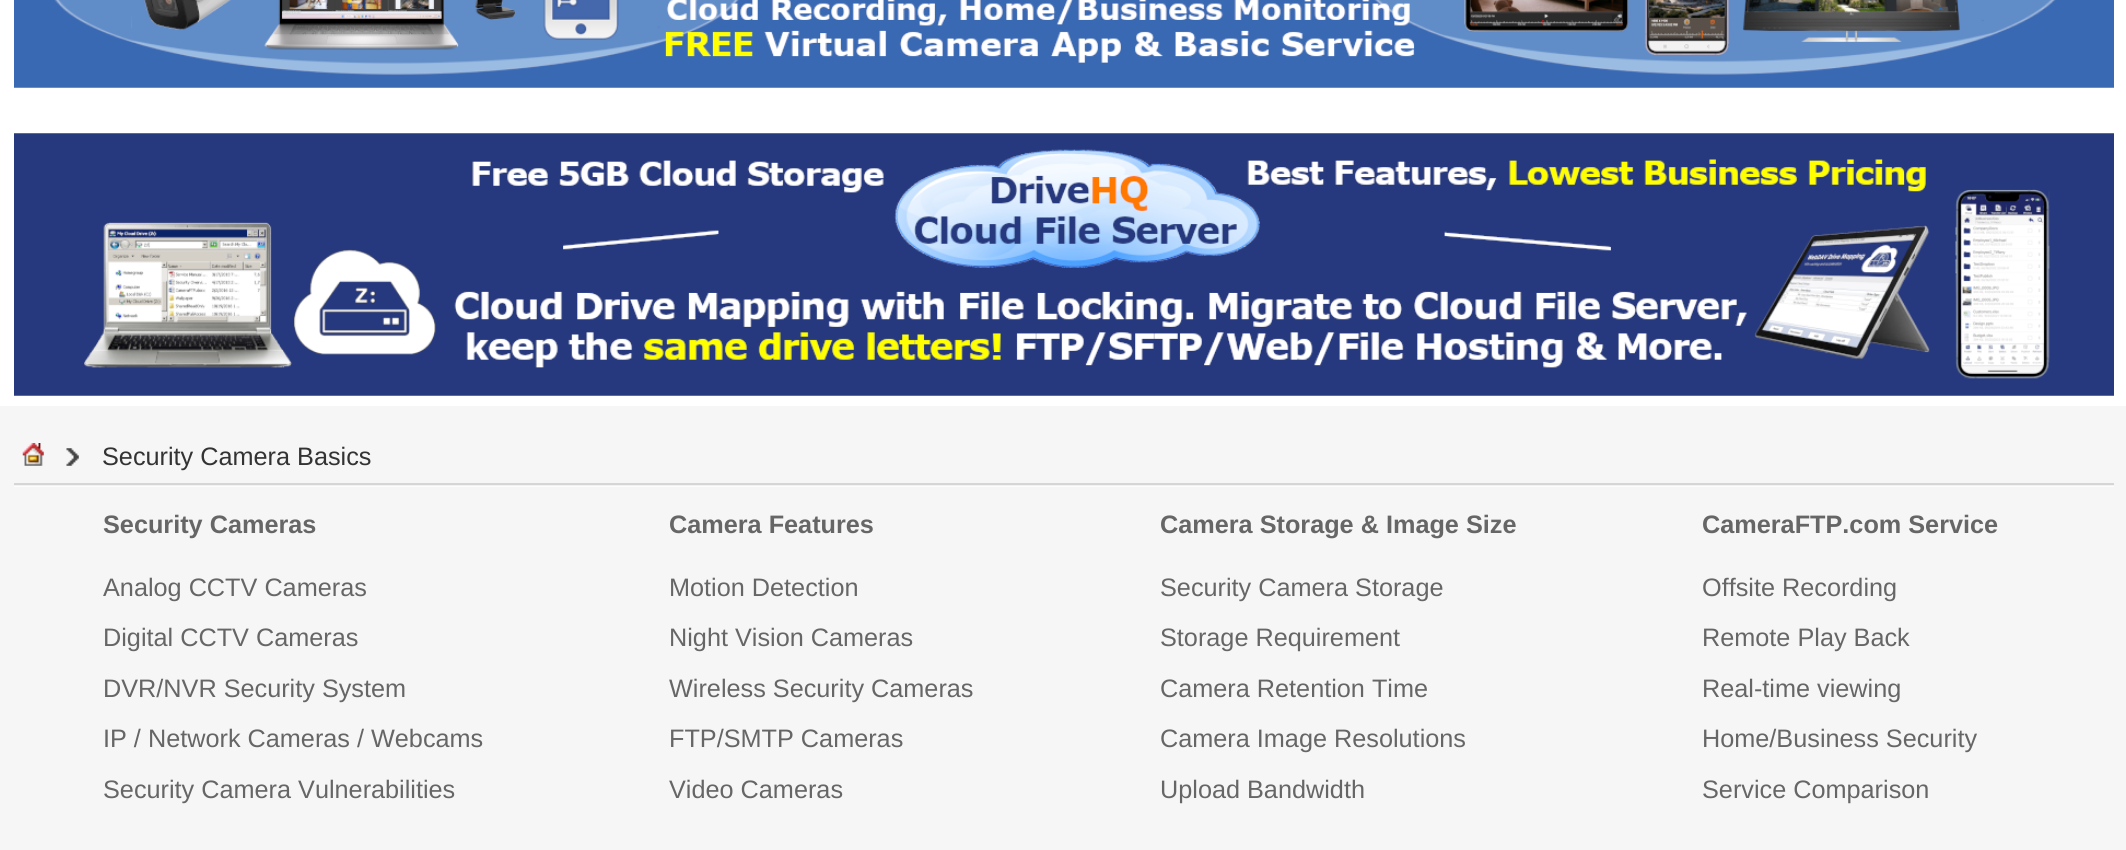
#include <cairo/cairo.h>
#include <math.h>
#include <stddef.h>


static void draw_image(cairo_t *cr, const char *path, double x, double y, double w, double h) {
  cairo_surface_t *image = cairo_image_surface_create_from_png(path);
  cairo_save(cr);
  cairo_set_source_surface(cr, image, x, y);
  cairo_rectangle(cr, x, y, w, h);
  cairo_fill(cr);
  cairo_restore(cr);
  cairo_surface_destroy(image);
}

static void draw(cairo_t *cr) {
  cairo_set_source_rgb(cr, 1, 1, 1);
  cairo_paint(cr);
  draw_image(cr, "images/1.png", 14, 0, 2100, 88);
  draw_image(cr, "images/2.png", 14, 133, 2100, 263);
  cairo_set_source_rgb(cr, 246 / 255.0, 246 / 255.0, 246 / 255.0);
  cairo_rectangle(cr, 0, 406, 2126, 444);
  cairo_fill(cr);
  draw_image(cr, "images/3.png", 14, 483, 2100, 4);
  draw_image(cr, "images/4.png", 22, 443, 22, 23);
  draw_image(cr, "images/5.png", 66, 448, 13, 18);
  cairo_select_font_face(cr, "Liberation Sans", CAIRO_FONT_SLANT_NORMAL, CAIRO_FONT_WEIGHT_NORMAL);
  cairo_set_font_size(cr, 25.25);
  cairo_set_source_rgb(cr, 51 / 255.0, 51 / 255.0, 51 / 255.0);
  cairo_move_to(cr, 102, 465);
  cairo_show_text(cr, "Security Camera Basics");
  cairo_select_font_face(cr, "Liberation Sans", CAIRO_FONT_SLANT_NORMAL, CAIRO_FONT_WEIGHT_BOLD);
  cairo_set_source_rgb(cr, 102 / 255.0, 102 / 255.0, 102 / 255.0);
  cairo_move_to(cr, 103, 533);
  cairo_show_text(cr, "Security Cameras");
  cairo_select_font_face(cr, "Liberation Sans", CAIRO_FONT_SLANT_NORMAL, CAIRO_FONT_WEIGHT_NORMAL);
  cairo_move_to(cr, 103, 596);
  cairo_show_text(cr, "Analog CCTV Cameras");
  cairo_move_to(cr, 103, 646);
  cairo_show_text(cr, "Digital CCTV Cameras");
  cairo_move_to(cr, 103, 697);
  cairo_show_text(cr, "DVR/NVR Security System");
  cairo_move_to(cr, 103, 747);
  cairo_show_text(cr, "IP / Network Cameras / Webcams");
  cairo_move_to(cr, 103, 798);
  cairo_show_text(cr, "Security Camera Vulnerabilities");
  cairo_select_font_face(cr, "Liberation Sans", CAIRO_FONT_SLANT_NORMAL, CAIRO_FONT_WEIGHT_BOLD);
  cairo_move_to(cr, 669, 533);
  cairo_show_text(cr, "Camera Features");
  cairo_select_font_face(cr, "Liberation Sans", CAIRO_FONT_SLANT_NORMAL, CAIRO_FONT_WEIGHT_NORMAL);
  cairo_move_to(cr, 669, 596);
  cairo_show_text(cr, "Motion Detection");
  cairo_move_to(cr, 669, 646);
  cairo_show_text(cr, "Night Vision Cameras");
  cairo_move_to(cr, 669, 697);
  cairo_show_text(cr, "Wireless Security Cameras");
  cairo_move_to(cr, 669, 747);
  cairo_show_text(cr, "FTP/SMTP Cameras");
  cairo_move_to(cr, 669, 798);
  cairo_show_text(cr, "Video Cameras");
  cairo_select_font_face(cr, "Liberation Sans", CAIRO_FONT_SLANT_NORMAL, CAIRO_FONT_WEIGHT_BOLD);
  cairo_move_to(cr, 1160, 533);
  cairo_show_text(cr, "Camera Storage & Image Size");
  cairo_select_font_face(cr, "Liberation Sans", CAIRO_FONT_SLANT_NORMAL, CAIRO_FONT_WEIGHT_NORMAL);
  cairo_move_to(cr, 1160, 596);
  cairo_show_text(cr, "Security Camera Storage");
  cairo_move_to(cr, 1160, 646);
  cairo_show_text(cr, "Storage Requirement");
  cairo_move_to(cr, 1160, 697);
  cairo_show_text(cr, "Camera Retention Time");
  cairo_move_to(cr, 1160, 747);
  cairo_show_text(cr, "Camera Image Resolutions");
  cairo_move_to(cr, 1160, 798);
  cairo_show_text(cr, "Upload Bandwidth");
  cairo_select_font_face(cr, "Liberation Sans", CAIRO_FONT_SLANT_NORMAL, CAIRO_FONT_WEIGHT_BOLD);
  cairo_move_to(cr, 1702, 533);
  cairo_show_text(cr, "CameraFTP.com Service");
  cairo_select_font_face(cr, "Liberation Sans", CAIRO_FONT_SLANT_NORMAL, CAIRO_FONT_WEIGHT_NORMAL);
  cairo_move_to(cr, 1702, 596);
  cairo_show_text(cr, "Offsite Recording");
  cairo_move_to(cr, 1702, 646);
  cairo_show_text(cr, "Remote Play Back");
  cairo_move_to(cr, 1702, 697);
  cairo_show_text(cr, "Real-time viewing");
  cairo_move_to(cr, 1702, 747);
  cairo_show_text(cr, "Home/Business Security");
  cairo_move_to(cr, 1702, 798);
  cairo_show_text(cr, "Service Comparison");
}

int main(void) {
  cairo_surface_t *surface = cairo_image_surface_create(CAIRO_FORMAT_RGB24, 2126, 850);
  cairo_t *cr = cairo_create(surface);
  cairo_font_options_t *options = cairo_font_options_create();
  cairo_font_options_set_hint_metrics(options, CAIRO_HINT_METRICS_OFF);
  cairo_font_options_set_hint_style(options, CAIRO_HINT_STYLE_NONE);
  cairo_set_font_options(cr, options);
  cairo_set_miter_limit(cr, 4);
  draw(cr);
  cairo_surface_write_to_png(surface, "out.png");
  cairo_font_options_destroy(options);
  cairo_destroy(cr);
  cairo_surface_destroy(surface);
  return 0;
}
